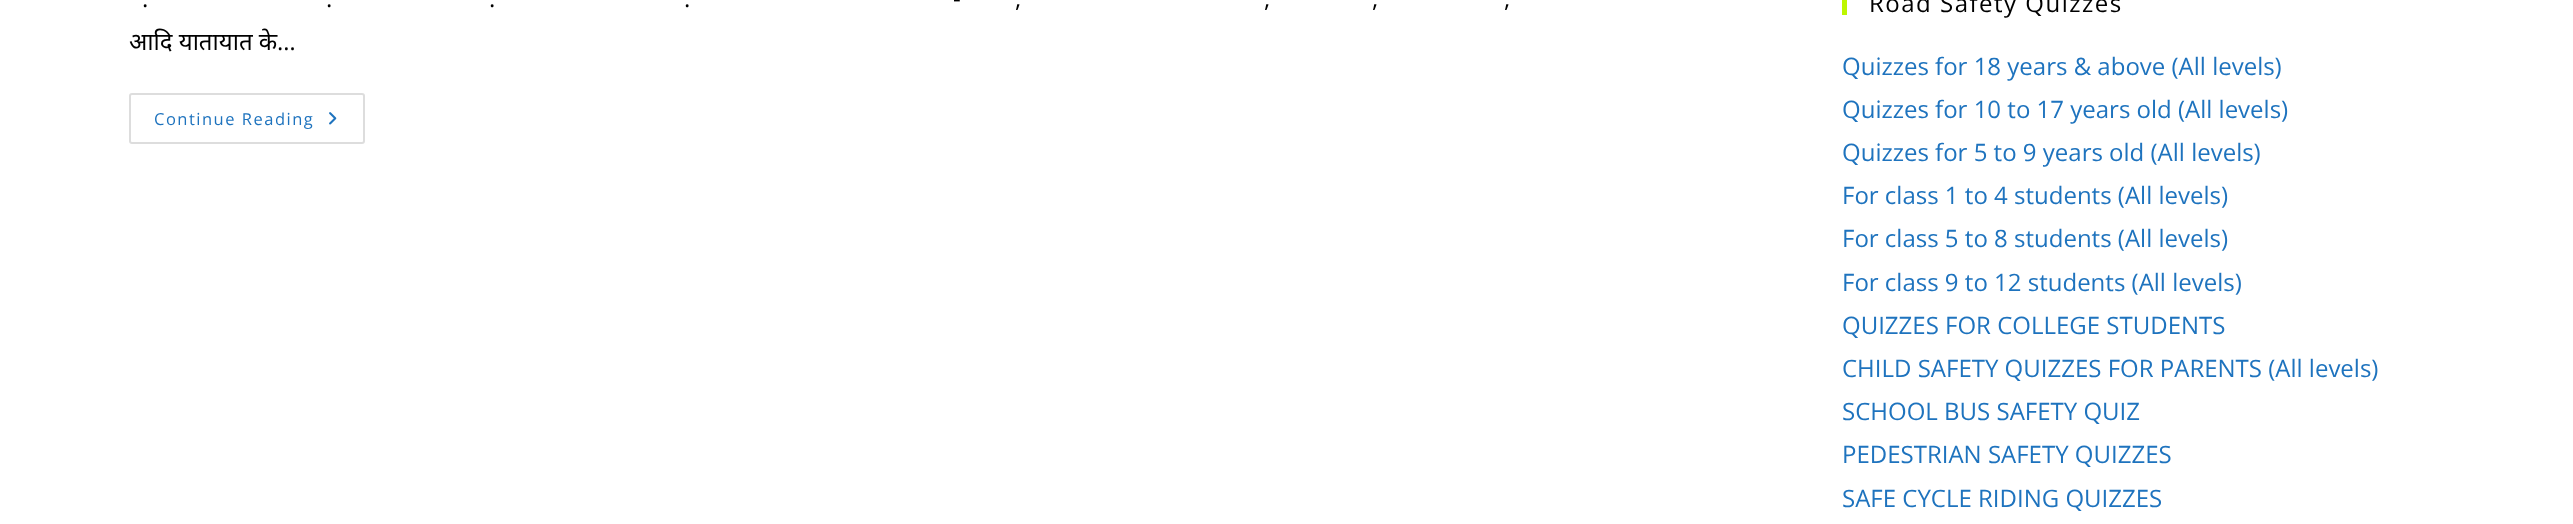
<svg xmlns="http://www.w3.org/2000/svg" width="2573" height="524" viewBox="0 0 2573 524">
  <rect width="100%" height="100%" fill="#ffffff"/>
  <text x="953" y="7" font-family="Open Sans" font-size="24" fill="#000000">-</text>
  <text x="142" y="7" font-family="Open Sans" font-size="24" fill="#000000">.</text>
  <text x="326" y="7" font-family="Open Sans" font-size="24" fill="#000000">.</text>
  <text x="489" y="7" font-family="Open Sans" font-size="24" fill="#000000">.</text>
  <text x="684" y="7" font-family="Open Sans" font-size="24" fill="#000000">.</text>
  <text x="1015" y="7" font-family="Open Sans" font-size="24" fill="#000000">,</text>
  <text x="1264" y="7" font-family="Open Sans" font-size="24" fill="#000000">,</text>
  <text x="1372" y="7" font-family="Open Sans" font-size="24" fill="#000000">,</text>
  <text x="1504" y="7" font-family="Open Sans" font-size="24" fill="#000000">,</text>
  <text x="129" y="50" font-family="Noto Sans" font-size="24" fill="#000000">आदि यातायात के</text>
  <text x="277" y="50" font-family="Open Sans" font-size="24" fill="#000000">…</text>
  <rect x="130" y="94" width="234" height="49" rx="2" fill="none" stroke="#dddddd" stroke-width="2"/>
  <text x="154" y="125" font-family="Open Sans" font-size="16.5" letter-spacing="1.5" fill="#1e73be">Continue Reading</text>
  <image x="329" y="112" width="8" height="13" href="img1.png"/>
  <rect x="1842" y="0" width="5" height="15" fill="#bdf700"/>
  <text x="1869" y="12" font-family="Open Sans" font-size="24" letter-spacing="1.5" fill="#000000">Road Safety Quizzes</text>
  <text x="1842" y="75" font-family="Open Sans" font-size="24" fill="#1e73be">Quizzes for 18 years &amp; above (All levels)</text>
  <text x="1842" y="118" font-family="Open Sans" font-size="24" fill="#1e73be">Quizzes for 10 to 17 years old (All levels)</text>
  <text x="1842" y="161" font-family="Open Sans" font-size="24" fill="#1e73be">Quizzes for 5 to 9 years old (All levels)</text>
  <text x="1842" y="204" font-family="Open Sans" font-size="24" fill="#1e73be">For class 1 to 4 students (All levels)</text>
  <text x="1842" y="247" font-family="Open Sans" font-size="24" fill="#1e73be">For class 5 to 8 students (All levels)</text>
  <text x="1842" y="291" font-family="Open Sans" font-size="24" fill="#1e73be">For class 9 to 12 students (All levels)</text>
  <text x="1842" y="334" font-family="Open Sans" font-size="24" fill="#1e73be">QUIZZES FOR COLLEGE STUDENTS</text>
  <text x="1842" y="377" font-family="Open Sans" font-size="24" fill="#1e73be">CHILD SAFETY QUIZZES FOR PARENTS (All levels)</text>
  <text x="1842" y="420" font-family="Open Sans" font-size="24" fill="#1e73be">SCHOOL BUS SAFETY QUIZ</text>
  <text x="1842" y="463" font-family="Open Sans" font-size="24" fill="#1e73be">PEDESTRIAN SAFETY QUIZZES</text>
  <text x="1842" y="507" font-family="Open Sans" font-size="24" fill="#1e73be">SAFE CYCLE RIDING QUIZZES</text>
</svg>
